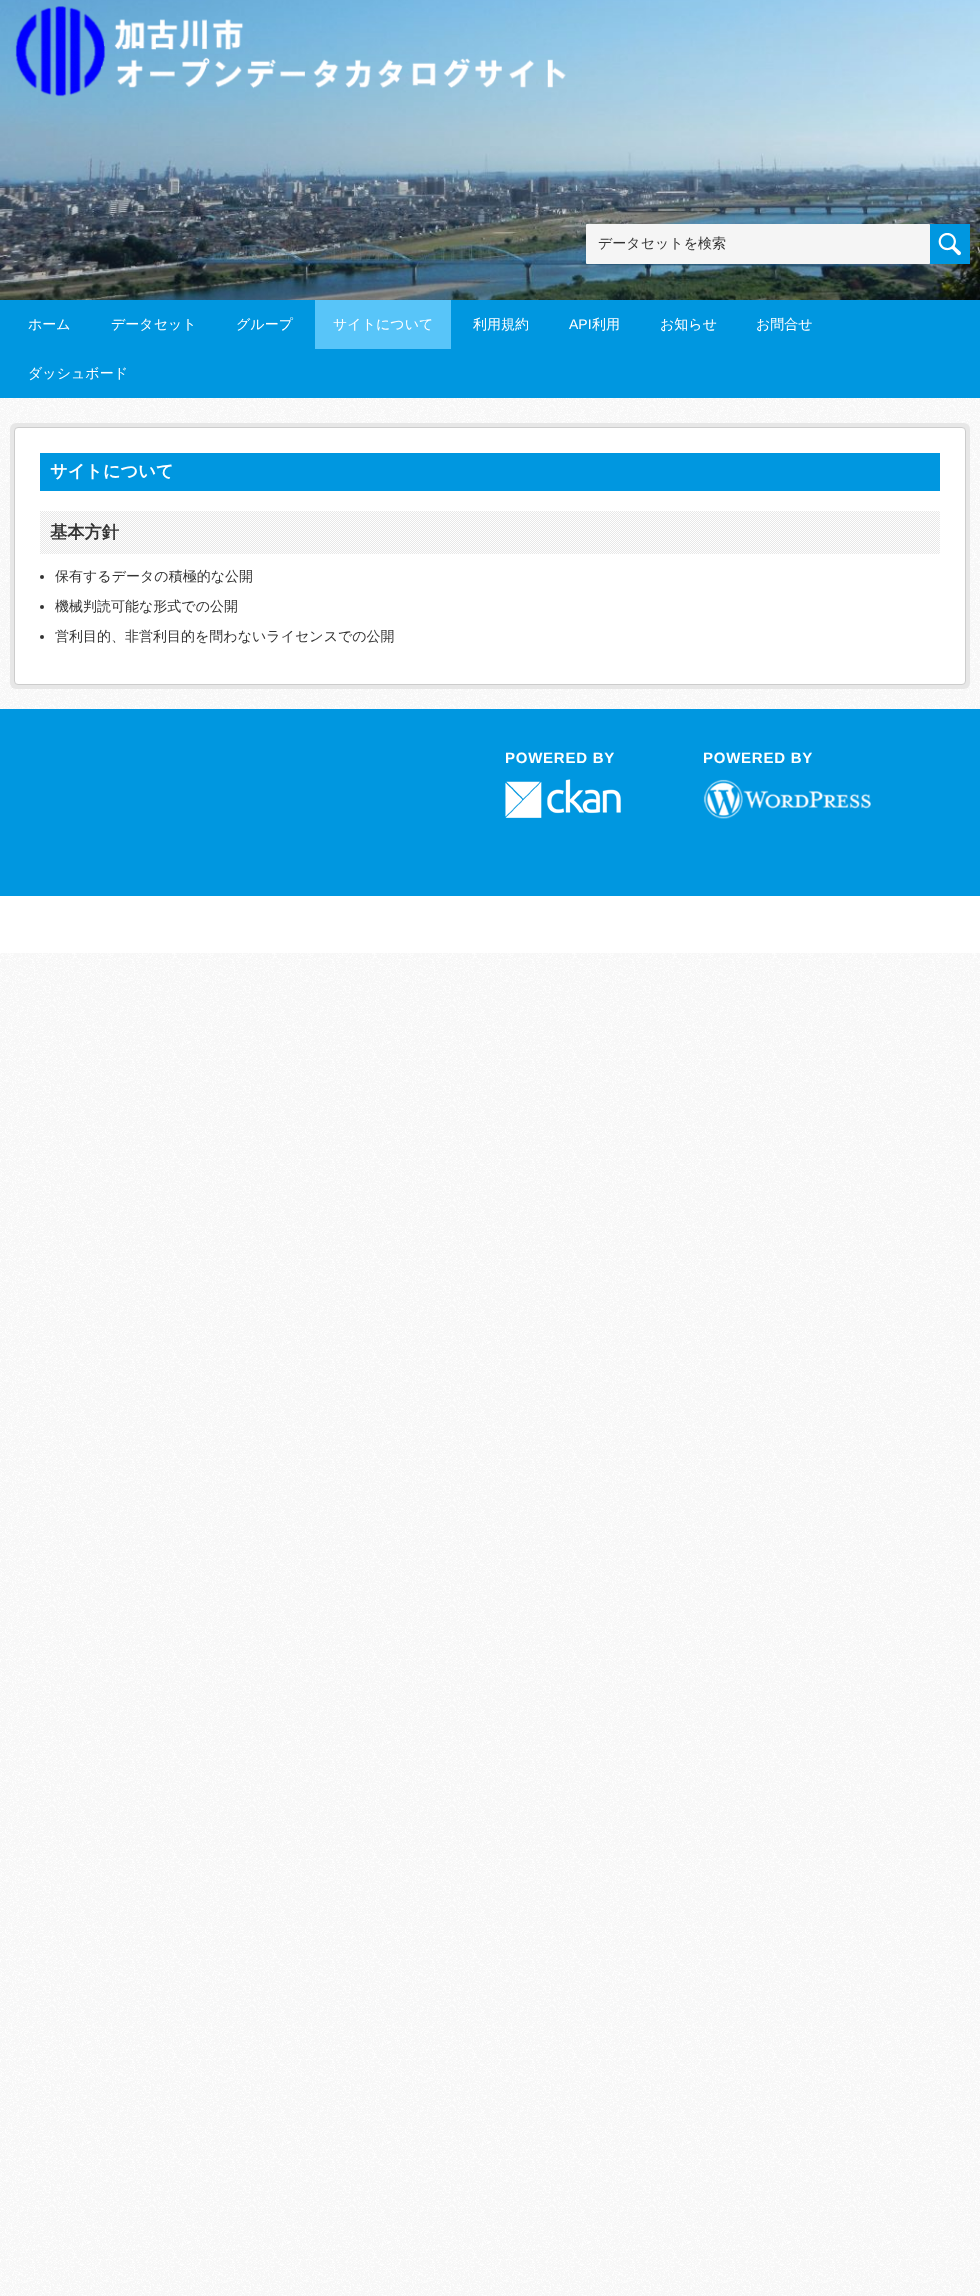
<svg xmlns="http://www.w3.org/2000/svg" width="980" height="2296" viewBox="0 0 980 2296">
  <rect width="100%" height="100%" fill="#ffffff"/>
  <image x="0" y="398" width="980" height="1898" href="img1.png"/>
  <image x="0" y="0" width="980" height="300" href="img2.png"/>
  <image x="15" y="6" width="551" height="91" href="img3.png"/>
  <rect x="586" y="224" width="344" height="40" rx="1" fill="#f5f5f5"/>
  <text x="598" y="248" font-family="WenQuanYi Zen Hei" font-size="14" font-weight="500" fill="#333333">データセットを検索</text>
  <rect x="930" y="224" width="40" height="40" fill="#0097e0"/>
  <image x="938" y="233" width="23" height="23" href="img4.png"/>
  <rect x="0" y="300" width="980" height="98" fill="#0097e0"/>
  <text x="28" y="329" font-family="WenQuanYi Zen Hei" font-size="14" font-weight="500" fill="#ffffff">ホーム</text>
  <text x="111" y="329" font-family="WenQuanYi Zen Hei" font-size="14" font-weight="500" fill="#ffffff">データセット</text>
  <text x="236" y="329" font-family="WenQuanYi Zen Hei" font-size="14" font-weight="500" fill="#ffffff">グループ</text>
  <rect x="315" y="300" width="136" height="49" fill="#58c5f9"/>
  <text x="333" y="329" font-family="WenQuanYi Zen Hei" font-size="14" font-weight="500" fill="#ffffff">サイトについて</text>
  <text x="473" y="329" font-family="WenQuanYi Zen Hei" font-size="14" font-weight="500" fill="#ffffff">利用規約</text>
  <text x="569" y="329" font-family="Liberation Sans" font-size="14" fill="#ffffff">API</text>
  <text x="592" y="329" font-family="WenQuanYi Zen Hei" font-size="14" font-weight="500" fill="#ffffff">利用</text>
  <text x="660" y="329" font-family="WenQuanYi Zen Hei" font-size="14" font-weight="500" fill="#ffffff">お知らせ</text>
  <text x="756" y="329" font-family="WenQuanYi Zen Hei" font-size="14" font-weight="500" fill="#ffffff">お問合せ</text>
  <text x="28" y="378" font-family="WenQuanYi Zen Hei" font-size="14" font-weight="500" fill="#ffffff">ダッシュボード</text>
  <rect x="10" y="423" width="960" height="266" rx="6" fill="#e7e7e7"/>
  <rect x="14.5" y="427.5" width="951" height="257" rx="3.5" fill="#ffffff" stroke="#cccccc"/>
  <rect x="40" y="453" width="900" height="38" fill="#0097e0"/>
  <text x="50" y="477" font-family="WenQuanYi Zen Hei" font-size="17.25" font-weight="bold" fill="#ffffff">サイトについて</text>
  <image x="40" y="511" width="900" height="43" href="img5.png"/>
  <text x="50" y="538" font-family="WenQuanYi Zen Hei" font-size="17.25" font-weight="bold" fill="#333333">基本方針</text>
  <circle cx="42" cy="577" r="2" fill="#333333"/>
  <text x="55" y="581" font-family="WenQuanYi Zen Hei" font-size="14" font-weight="500" fill="#333333">保有するデータの積極的な公開</text>
  <circle cx="42" cy="607" r="2" fill="#333333"/>
  <text x="55" y="611" font-family="WenQuanYi Zen Hei" font-size="14" font-weight="500" fill="#333333">機械判読可能な形式での公開</text>
  <circle cx="42" cy="637" r="2" fill="#333333"/>
  <text x="55" y="641" font-family="WenQuanYi Zen Hei" font-size="14" font-weight="500" fill="#333333">営利目的、非営利目的を問わないライセンスでの公開</text>
  <rect x="0" y="709" width="980" height="187" fill="#0097e0"/>
  <text x="505" y="763" font-family="Liberation Sans" font-size="15" font-weight="bold" letter-spacing="0.75" fill="#ffffff">POWERED BY</text>
  <image x="505" y="779" width="116" height="39" href="img6.png"/>
  <text x="703" y="763" font-family="Liberation Sans" font-size="15" font-weight="bold" letter-spacing="0.75" fill="#ffffff">POWERED BY</text>
  <image x="703" y="779" width="168" height="40" href="img7.png"/>
  <rect x="0" y="896" width="980" height="57" fill="#ffffff"/>
</svg>
